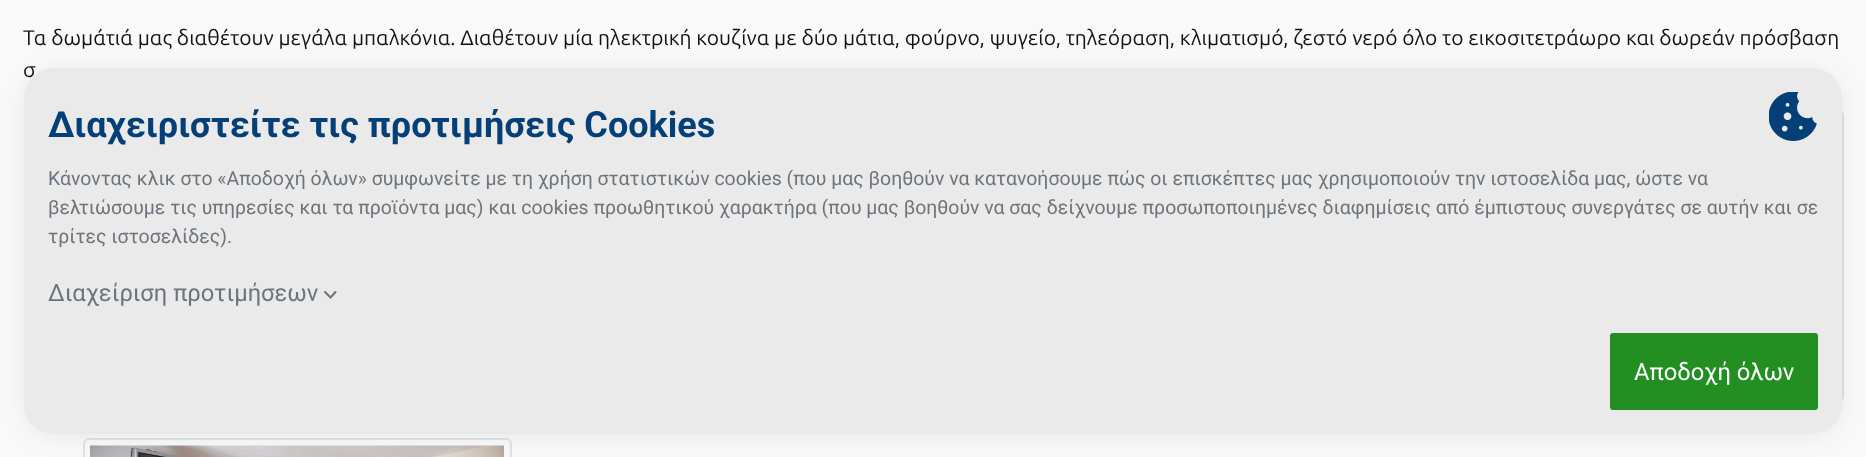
<svg xmlns="http://www.w3.org/2000/svg" width="1866" height="457" viewBox="0 0 1866 457">
  <defs>
    <filter id="blur1" x="-50%" y="-200%" width="200%" height="500%"><feGaussianBlur stdDeviation="14"/></filter>
  </defs>
  <rect width="100%" height="100%" fill="#f9f9f9"/>
  <text x="23" y="45" font-family="Ubuntu" font-size="21" fill="#121212">Τα δωμάτιά μας διαθέτουν μεγάλα μπαλκόνια. Διαθέτουν μία ηλεκτρική κουζίνα με δύο μάτια, φούρνο, ψυγείο, τηλεόραση, κλιματισμό, ζεστό νερό όλο το εικοσιτετράωρο και δωρεάν πρόσβαση</text>
  <text x="23" y="77" font-family="Ubuntu" font-size="21" fill="#121212">σ</text>
  <rect x="1416" y="111" width="427" height="290" rx="5" fill="none" stroke="#dee2e6" stroke-width="2"/>
  <rect x="84" y="439" width="427" height="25" rx="5" fill="none" stroke="#dee2e6" stroke-width="2"/>
  <image x="90" y="445" width="414" height="12" href="img1.png"/>
  <rect x="30" y="77" width="1806" height="354" rx="24" fill="#01013f" fill-opacity="0.1" filter="url(#blur1)"/>
  <rect x="24" y="68" width="1818" height="366" rx="30" fill="#eaeaea"/>
  <text x="48" y="137" font-family="Roboto" font-size="36" font-weight="bold" fill="#044077">Διαχειριστείτε τις προτιμήσεις Cookies</text>
  <image x="1769" y="92" width="48" height="49" href="img2.png"/>
  <text x="48" y="185" font-family="Roboto" font-size="19.45" fill="#6c757d">Κάνοντας κλικ στο «Αποδοχή όλων» συμφωνείτε με τη χρήση στατιστικών cookies (που μας βοηθούν να κατανοήσουμε πώς οι επισκέπτες μας χρησιμοποιούν την ιστοσελίδα μας, ώστε να</text>
  <text x="48" y="214" font-family="Roboto" font-size="19.45" fill="#6c757d">βελτιώσουμε τις υπηρεσίες και τα προϊόντα μας) και cookies προωθητικού χαρακτήρα (που μας βοηθούν να σας δείχνουμε προσωποποιημένες διαφημίσεις από έμπιστους συνεργάτες σε αυτήν και σε</text>
  <text x="48" y="243" font-family="Roboto" font-size="19.45" fill="#6c757d">τρίτες ιστοσελίδες).</text>
  <text x="48" y="301" font-family="Roboto" font-size="23.75" fill="#6c757d">Διαχείριση προτιμήσεων</text>
  <path d="M325 292L330.5 297.5L335.5 292" fill="none" stroke="#6c757d" stroke-width="2.1" stroke-linecap="round"/>
  <rect x="1610" y="333" width="208" height="77" rx="3" fill="#238f23"/>
  <text x="1634" y="380" font-family="Roboto" font-size="23.75" fill="#ffffff">Αποδοχή όλων</text>
</svg>
